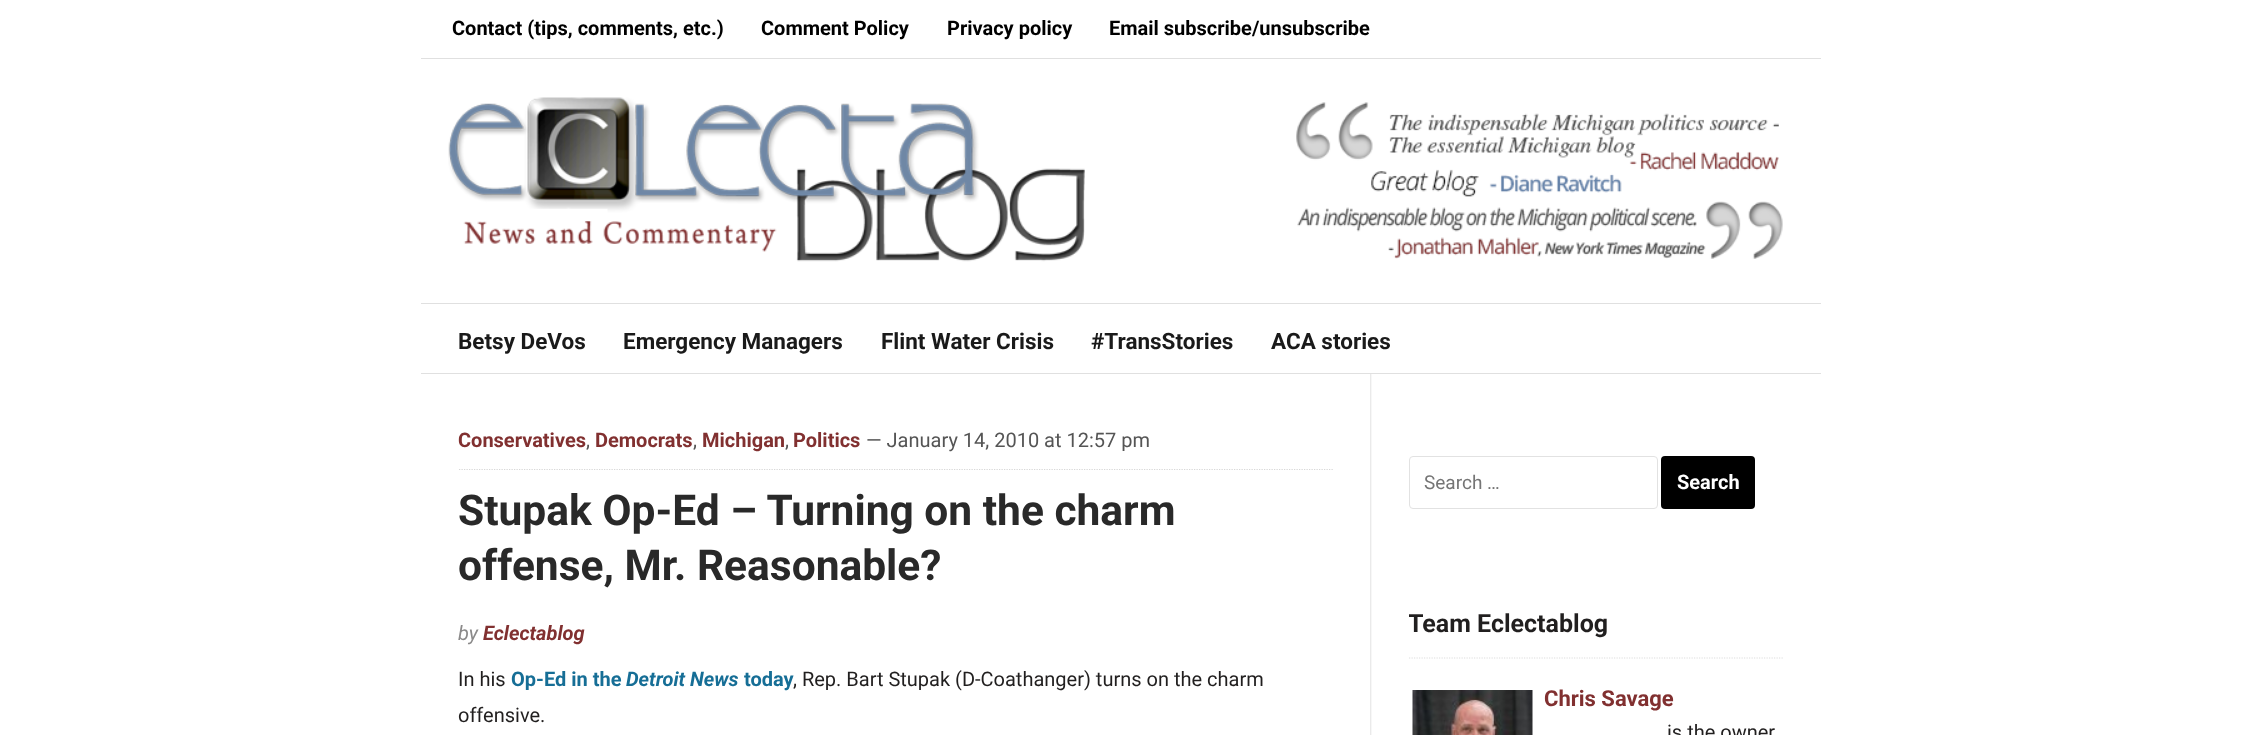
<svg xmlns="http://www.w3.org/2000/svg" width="2241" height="735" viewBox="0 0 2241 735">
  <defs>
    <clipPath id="clip1"><rect x="1409" y="411" width="375" height="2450"/></clipPath>
  </defs>
  <rect width="100%" height="100%" fill="#ffffff"/>
  <image x="1370" y="374" width="2" height="361" href="img1.png"/>
  <rect x="421" y="58" width="1400" height="1" fill="#e0e0e0"/>
  <text x="452" y="35" font-family="Roboto" font-size="20" font-weight="bold" fill="#000000">Contact (tips, comments, etc.)</text>
  <text x="761" y="35" font-family="Roboto" font-size="20" font-weight="bold" fill="#000000">Comment Policy</text>
  <text x="947" y="35" font-family="Roboto" font-size="20" font-weight="bold" fill="#000000">Privacy policy</text>
  <text x="1109" y="35" font-family="Roboto" font-size="20" font-weight="bold" fill="#000000">Email subscribe/unsubscribe</text>
  <image x="448" y="97" width="637" height="165" href="img2.png"/>
  <image x="1296" y="102" width="487" height="157" href="img3.png"/>
  <rect x="421" y="303" width="1400" height="1" fill="#e0e0e0"/>
  <rect x="421" y="373" width="1400" height="1" fill="#e0e0e0"/>
  <text x="458" y="349" font-family="Roboto" font-size="22.5" font-weight="bold" fill="#1a1a1a">Betsy DeVos</text>
  <text x="623" y="349" font-family="Roboto" font-size="22.5" font-weight="bold" fill="#1a1a1a">Emergency Managers</text>
  <text x="881" y="349" font-family="Roboto" font-size="22.5" font-weight="bold" fill="#1a1a1a">Flint Water Crisis</text>
  <text x="1091" y="349" font-family="Roboto" font-size="22.5" font-weight="bold" fill="#1a1a1a">#TransStories</text>
  <text x="1271" y="349" font-family="Roboto" font-size="22.5" font-weight="bold" fill="#1a1a1a">ACA stories</text>
  <path d="M459 469.5H1334" fill="none" stroke="#d7d7d7" stroke-width="1.2" stroke-dasharray="1.25 1.25"/>
  <text x="458" y="447" font-family="Roboto" font-size="20" font-weight="bold" fill="#813030">Conservatives</text>
  <text x="586" y="447" font-family="Roboto" font-size="20" fill="#555555">,</text>
  <text x="595" y="447" font-family="Roboto" font-size="20" font-weight="bold" fill="#813030">Democrats</text>
  <text x="693" y="447" font-family="Roboto" font-size="20" fill="#555555">,</text>
  <text x="702" y="447" font-family="Roboto" font-size="20" font-weight="bold" fill="#813030">Michigan</text>
  <text x="785" y="447" font-family="Roboto" font-size="20" fill="#555555">,</text>
  <text x="793" y="447" font-family="Roboto" font-size="20" font-weight="bold" fill="#813030">Politics</text>
  <text x="866" y="447" font-family="Roboto" font-size="20" fill="#555555">— January 14, 2010 at 12:57 pm</text>
  <text x="458" y="525" font-family="Roboto" font-size="42.5" font-weight="bold" fill="#292929">Stupak Op-Ed – Turning on the charm</text>
  <text x="458" y="580" font-family="Roboto" font-size="42.5" font-weight="bold" fill="#292929">offense, Mr. Reasonable?</text>
  <text x="458" y="640" font-family="Roboto" font-size="20" font-style="italic" fill="#8b8a8a">by</text>
  <text x="483" y="640" font-family="Roboto" font-size="20" font-weight="bold" font-style="italic" fill="#813030">Eclectablog</text>
  <text x="458" y="686" font-family="Roboto" font-size="20" fill="#211f1f">In his</text>
  <text x="511" y="686" font-family="Roboto" font-size="20" font-weight="bold" fill="#166e96">Op-Ed in the</text>
  <text x="626" y="686" font-family="Roboto" font-size="20" font-weight="bold" font-style="italic" fill="#166e96">Detroit News</text>
  <text x="744" y="686" font-family="Roboto" font-size="20" font-weight="bold" fill="#166e96">today</text>
  <text x="793" y="686" font-family="Roboto" font-size="20" fill="#211f1f">, Rep. Bart Stupak (D-Coathanger) turns on the charm</text>
  <text x="458" y="722" font-family="Roboto" font-size="20" fill="#211f1f">offensive.</text>
  <rect x="1409.5" y="456.5" width="248" height="52" rx="3.5" fill="none" stroke="#e2e2e2"/>
  <text x="1424" y="489" font-family="Roboto" font-size="19" fill="#757575">Search …</text>
  <rect x="1661" y="456" width="94" height="53" rx="4" fill="#000000"/>
  <text x="1677" y="489" font-family="Roboto" font-size="20" font-weight="bold" fill="#ffffff">Search</text>
  <path d="M1409 658H1784" fill="none" stroke="#dddddd" stroke-width="1.2" stroke-dasharray="1.25 1.25"/>
  <g clip-path="url(#clip1)">
    <text x="1408" y="632" font-family="Roboto" font-size="25" font-weight="bold" fill="#211f1f">Team Eclectablog</text>
  </g>
  <image x="1412" y="690" width="121" height="45" href="img4.png"/>
  <text x="1544" y="706" font-family="Roboto" font-size="22" font-weight="bold" fill="#813030">Chris Savage</text>
  <text x="1667" y="739" font-family="Roboto" font-size="20" fill="#211f1f">is the owner</text>
</svg>
